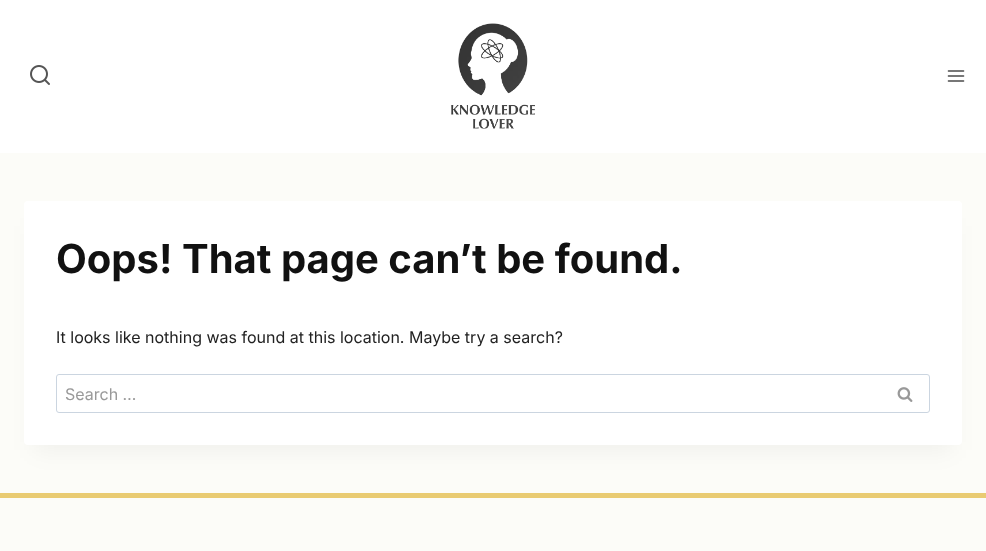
<svg xmlns="http://www.w3.org/2000/svg" width="986" height="551" viewBox="0 0 986 551">
  <defs>
    <filter id="blur1" x="-50%" y="-200%" width="200%" height="500%"><feGaussianBlur stdDeviation="12.5"/></filter>
  </defs>
  <rect width="100%" height="100%" fill="#fcfcf8"/>
  <rect x="0" y="0" width="986" height="153" fill="#ffffff"/>
  <image x="30" y="65" width="20" height="20" href="img1.png"/>
  <image x="451" y="23" width="84" height="106" href="img2.png"/>
  <image x="947" y="70" width="18" height="12" href="img3.png"/>
  <rect x="34" y="226" width="918" height="224" fill="#000000" fill-opacity="0.05" filter="url(#blur1)"/>
  <rect x="24" y="201" width="938" height="244" rx="4" fill="#ffffff"/>
  <text x="56" y="273" font-family="Inter" font-size="40" font-weight="bold" fill="#111111">Oops! That page can’t be found.</text>
  <text x="56" y="343" font-family="Inter" font-size="16" fill="#222222">It looks like nothing was found at this location. Maybe try a search?</text>
  <rect x="56.5" y="374.5" width="873" height="38" rx="2.5" fill="none" stroke="#cbd5e0"/>
  <text x="65" y="400" font-family="Inter" font-size="16" fill="#999999">Search …</text>
  <image x="897" y="387" width="16" height="15" href="img4.png"/>
  <rect x="0" y="493" width="986" height="5" fill="#e9cb72"/>
</svg>
